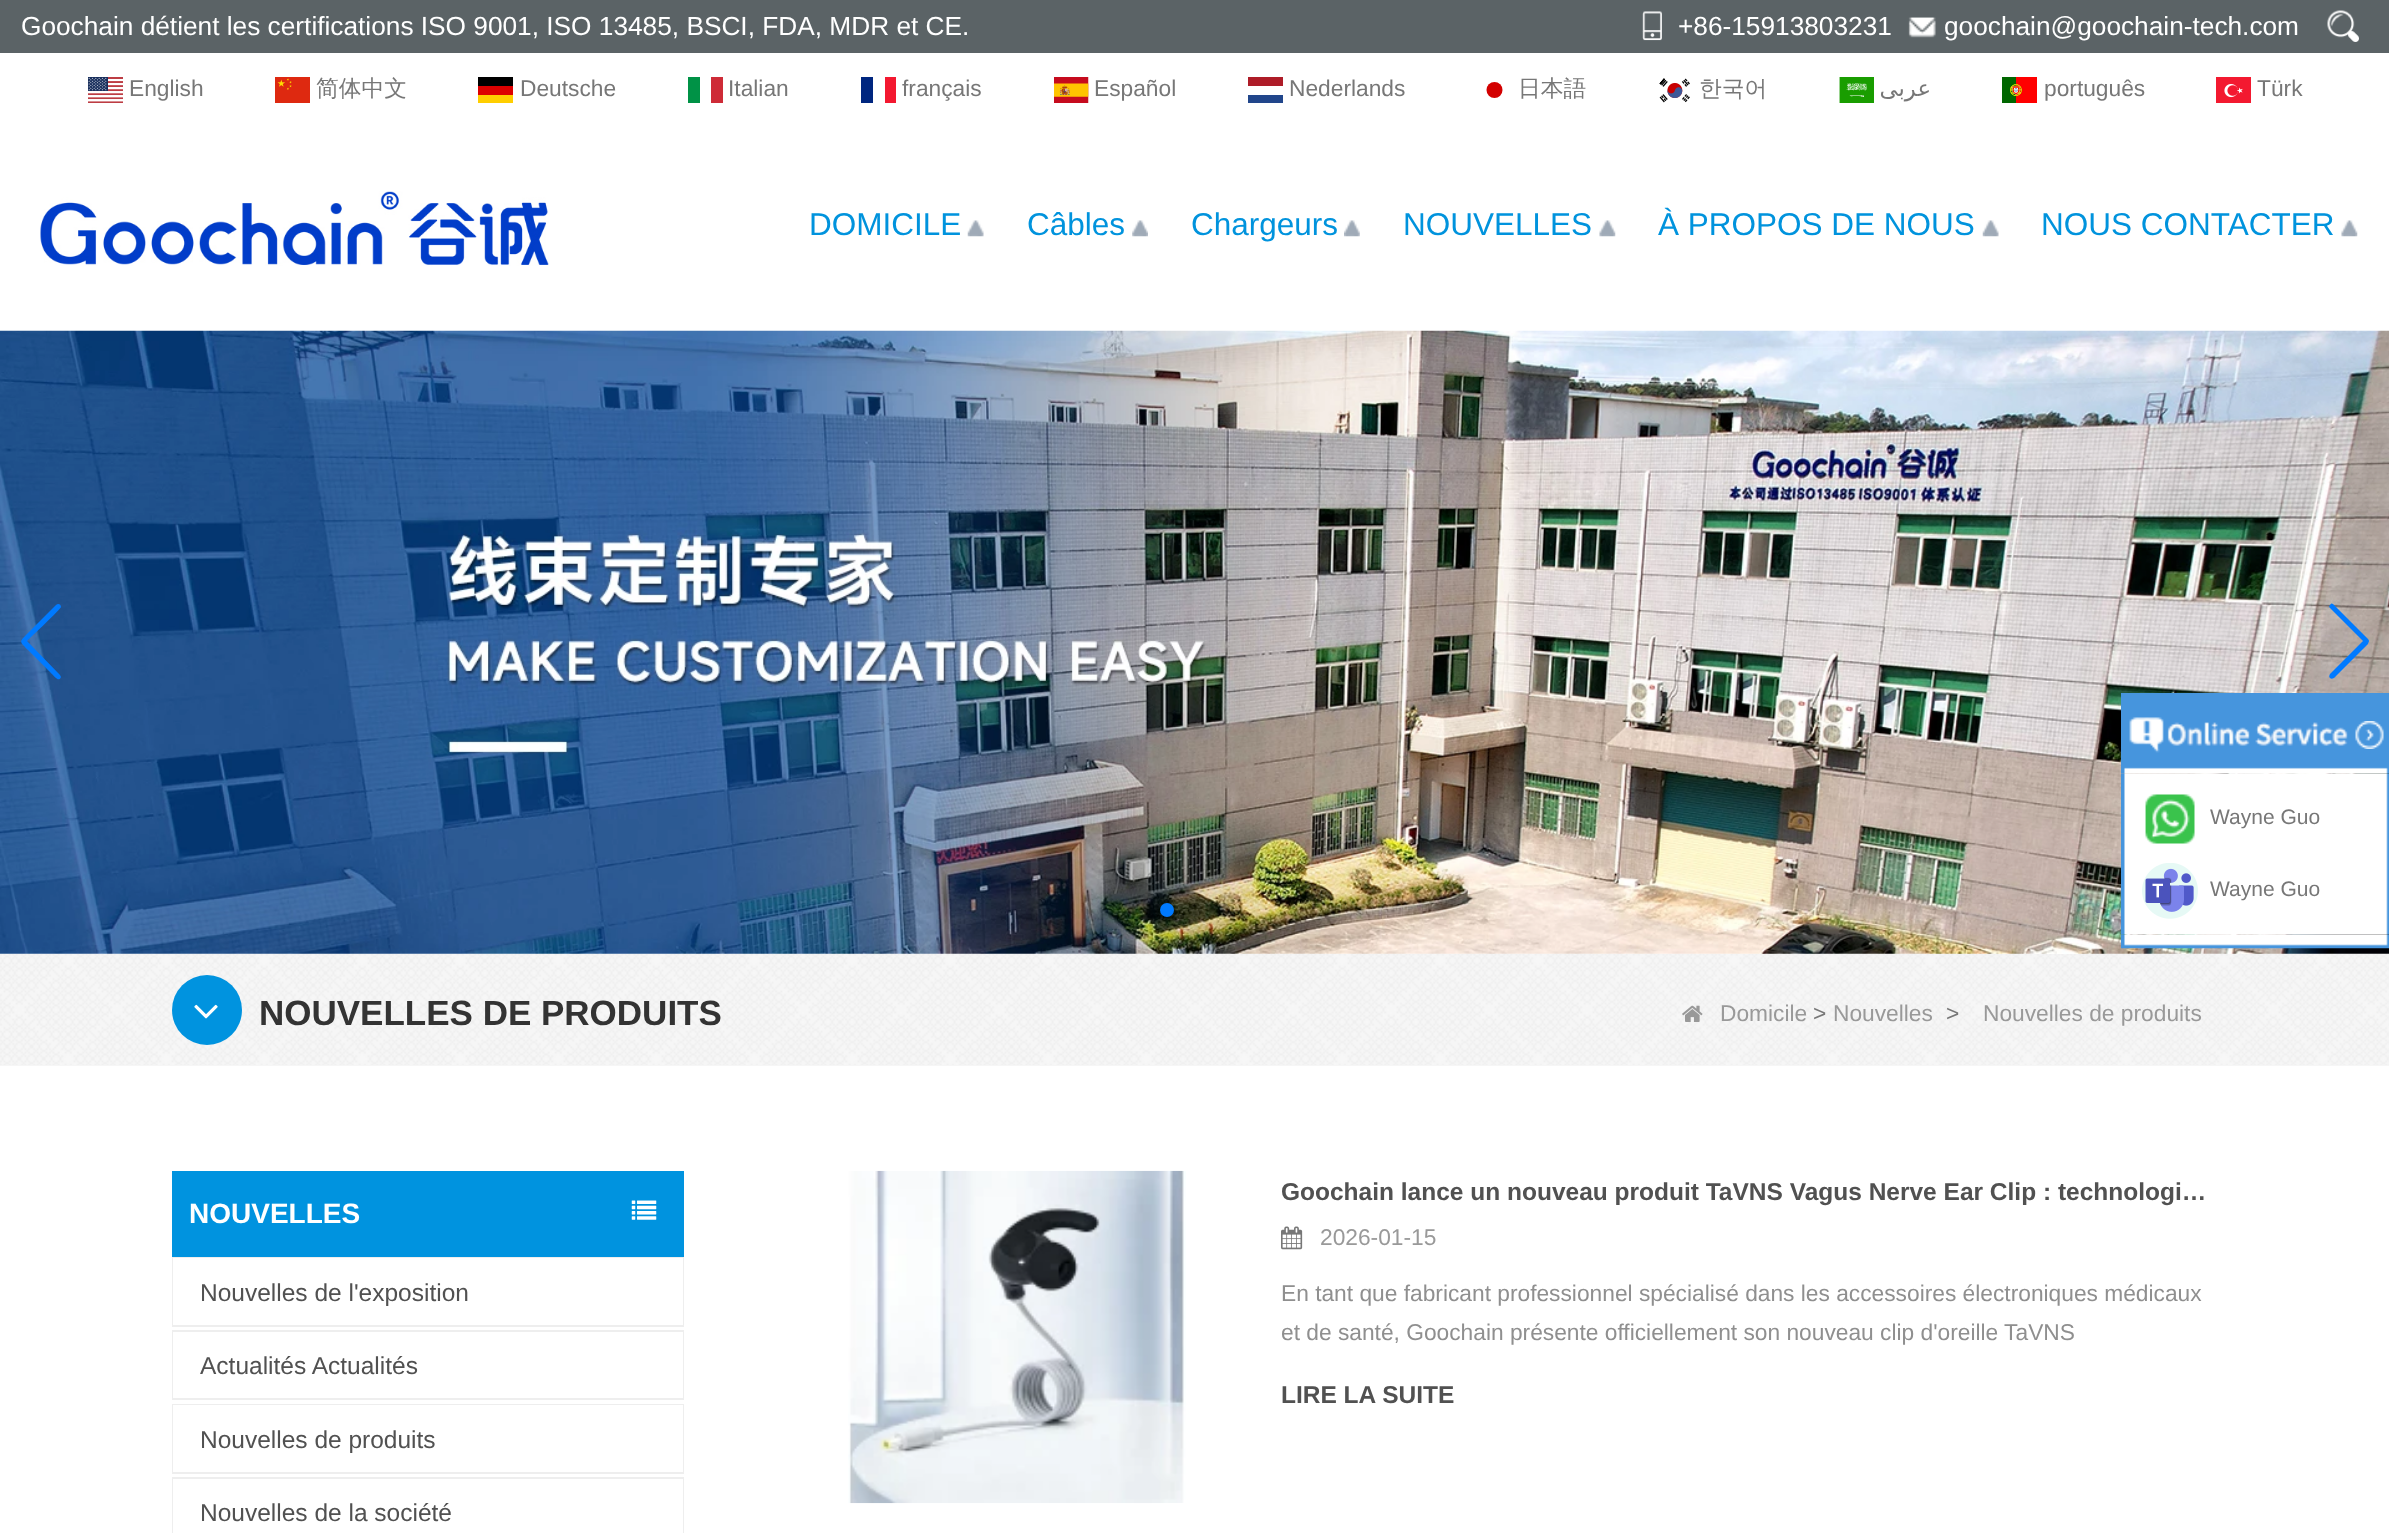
<svg xmlns="http://www.w3.org/2000/svg" width="2389" height="1533" viewBox="0 0 2389 1533">
  <rect width="100%" height="100%" fill="#ffffff"/>
  <rect x="0" y="0" width="2389" height="53" fill="#5b6366"/>
  <text x="21" y="35" font-family="Liberation Sans" font-size="26.25" fill="#ffffff">Goochain détient les certifications ISO 9001, ISO 13485, BSCI, FDA, MDR et CE.</text>
  <image x="1642" y="11" width="20" height="30" href="img1.png"/>
  <text x="1678" y="35" font-family="Liberation Sans" font-size="26.25" fill="#ffffff">+86-15913803231</text>
  <image x="1908" y="17" width="28" height="21" href="img2.png"/>
  <text x="1944" y="35" font-family="Liberation Sans" font-size="26.25" fill="#ffffff">goochain@goochain-tech.com</text>
  <image x="2327" y="10" width="32" height="32" href="img3.png"/>
  <image x="88" y="77" width="35" height="26" href="img4.png"/>
  <text x="129" y="96" font-family="Liberation Sans" font-size="22.75" fill="#777777">English</text>
  <image x="275" y="77" width="35" height="26" href="img5.png"/>
  <text x="316" y="96" font-family="WenQuanYi Zen Hei" font-size="22.75" font-weight="500" fill="#777777">简体中文</text>
  <rect x="478" y="95" width="35" height="8" fill="#ffce00"/>
  <rect x="478" y="77" width="35" height="9" fill="#000000"/>
  <rect x="478" y="86" width="35" height="9" fill="#dd0000"/>
  <text x="520" y="96" font-family="Liberation Sans" font-size="22.75" fill="#777777">Deutsche</text>
  <rect x="688" y="77" width="12" height="26" fill="#009246"/>
  <rect x="711" y="77" width="12" height="26" fill="#ce2b37"/>
  <text x="728" y="96" font-family="Liberation Sans" font-size="22.75" fill="#777777">Italian</text>
  <rect x="861" y="77" width="12" height="26" fill="#00267f"/>
  <rect x="885" y="77" width="11" height="26" fill="#f31830"/>
  <text x="902" y="96" font-family="Liberation Sans" font-size="22.75" fill="#777777">français</text>
  <image x="1054" y="77" width="35" height="26" href="img6.png"/>
  <text x="1094" y="96" font-family="Liberation Sans" font-size="22.75" fill="#777777">Español</text>
  <rect x="1248" y="95" width="35" height="8" fill="#21468b"/>
  <rect x="1248" y="77" width="35" height="9" fill="#ae1c28"/>
  <text x="1289" y="96" font-family="Liberation Sans" font-size="22.75" fill="#777777">Nederlands</text>
  <circle cx="1494.5" cy="90" r="8" fill="#d30000"/>
  <text x="1518" y="96" font-family="WenQuanYi Zen Hei" font-size="22.75" font-weight="500" fill="#777777">日本語</text>
  <image x="1659" y="78" width="31" height="25" href="img7.png"/>
  <text x="1699" y="96" font-family="WenQuanYi Zen Hei" font-size="22.75" font-weight="500" fill="#777777">한국어</text>
  <image x="1839" y="77" width="35" height="26" href="img8.png"/>
  <text x="1931" y="96" font-family="DejaVu Sans" font-size="22.75" direction="rtl" fill="#777777">عربى</text>
  <image x="2002" y="77" width="35" height="26" href="img9.png"/>
  <text x="2044" y="96" font-family="Liberation Sans" font-size="22.75" fill="#777777">português</text>
  <image x="2216" y="77" width="35" height="26" href="img10.png"/>
  <text x="2257" y="96" font-family="Liberation Sans" font-size="22.75" fill="#777777">Türk</text>
  <image x="40" y="191" width="509" height="75" href="img11.png"/>
  <text x="809" y="235" font-family="Liberation Sans" font-size="31.5" fill="#0093dd">DOMICILE</text>
  <image x="967" y="220" width="17" height="17" href="img12.png"/>
  <text x="1027" y="235" font-family="Liberation Sans" font-size="31.5" fill="#0093dd">Câbles</text>
  <image x="1132" y="220" width="16" height="17" href="img13.png"/>
  <text x="1191" y="235" font-family="Liberation Sans" font-size="31.5" fill="#0093dd">Chargeurs</text>
  <image x="1344" y="220" width="16" height="17" href="img14.png"/>
  <text x="1403" y="235" font-family="Liberation Sans" font-size="31.5" fill="#0093dd">NOUVELLES</text>
  <image x="1599" y="220" width="17" height="17" href="img15.png"/>
  <text x="1658" y="235" font-family="Liberation Sans" font-size="31.5" fill="#0093dd">À PROPOS DE NOUS</text>
  <image x="1982" y="220" width="17" height="17" href="img16.png"/>
  <text x="2041" y="235" font-family="Liberation Sans" font-size="31.5" fill="#0093dd">NOUS CONTACTER</text>
  <image x="2341" y="220" width="17" height="17" href="img17.png"/>
  <image x="0" y="330" width="2389" height="624" href="img18.png"/>
  <path d="M56 605C58 603 61 604 61 607C61 609 31 637 27 641L60 675L61 677C59 683 54 676 50 672L28 650C19 641 19 642 28 633Z" fill="#007aff"/>
  <path d="M2330 678C2329 677 2329 676 2330 674L2363 641L2330 608C2329 607 2329 606 2330 605C2331 603 2332 603 2334 605L2368 639C2368 639 2369 640 2369 641C2369 642 2368 643 2368 644L2334 678C2332 679 2331 679 2330 678Z" fill="#007aff"/>
  <circle cx="1167" cy="910" r="7" fill="#007aff"/>
  <circle cx="1195" cy="910" r="7" fill="#000000" fill-opacity="0.2"/>
  <circle cx="1223" cy="910" r="7" fill="#000000" fill-opacity="0.2"/>
  <image x="2121" y="693" width="268" height="81" href="img19.png"/>
  <image x="2355" y="721" width="29" height="28" href="img20.png"/>
  <image x="2121" y="773" width="268" height="162" href="img21.png"/>
  <image x="2145" y="794" width="50" height="50" href="img22.png"/>
  <text x="2210" y="824" font-family="Liberation Sans" font-size="21" fill="#777777">Wayne Guo</text>
  <image x="2142" y="863" width="56" height="56" href="img23.png"/>
  <text x="2210" y="896" font-family="Liberation Sans" font-size="21" fill="#777777">Wayne Guo</text>
  <image x="2121" y="934" width="268" height="15" href="img24.png"/>
  <rect x="0" y="954" width="2389" height="112" fill="#f6f6f6"/>
  <image x="0" y="954" width="2389" height="111" href="img25.png"/>
  <circle cx="207" cy="1010" r="35" fill="#0093df"/>
  <image x="194" y="1004" width="24" height="15" href="img26.png"/>
  <text x="259" y="1025" font-family="Liberation Sans" font-size="35" font-weight="bold" fill="#333333">NOUVELLES DE PRODUITS</text>
  <image x="1682" y="1005" width="21" height="17" href="img27.png"/>
  <text x="1720" y="1021" font-family="Liberation Sans" font-size="22.75" fill="#999999">Domicile</text>
  <text x="1813" y="1021" font-family="Liberation Sans" font-size="22.75" fill="#777777">&gt;</text>
  <text x="1833" y="1021" font-family="Liberation Sans" font-size="22.75" fill="#999999">Nouvelles</text>
  <text x="1946" y="1021" font-family="Liberation Sans" font-size="22.75" fill="#777777">&gt;</text>
  <text x="1983" y="1021" font-family="Liberation Sans" font-size="22.75" fill="#999999">Nouvelles de produits</text>
  <rect x="172" y="1171" width="512" height="86" fill="#0093df"/>
  <text x="189" y="1223" font-family="Liberation Sans" font-size="28" font-weight="bold" fill="#ffffff">NOUVELLES</text>
  <image x="631" y="1200" width="26" height="20" href="img28.png"/>
  <rect x="173" y="1258" width="510" height="68" fill="none" stroke="#eeeeee" stroke-width="2"/>
  <rect x="173" y="1258" width="510" height="67" fill="#ffffff"/>
  <text x="200" y="1301" font-family="Liberation Sans" font-size="24.5" fill="#515151">Nouvelles de l'exposition</text>
  <rect x="173" y="1331" width="510" height="68" fill="none" stroke="#eeeeee" stroke-width="2"/>
  <rect x="173" y="1332" width="510" height="66" fill="#ffffff"/>
  <text x="200" y="1374" font-family="Liberation Sans" font-size="24.5" fill="#515151">Actualités Actualités</text>
  <rect x="173" y="1405" width="510" height="68" fill="none" stroke="#eeeeee" stroke-width="2"/>
  <rect x="173" y="1405" width="510" height="67" fill="#ffffff"/>
  <text x="200" y="1448" font-family="Liberation Sans" font-size="24.5" fill="#515151">Nouvelles de produits</text>
  <rect x="173" y="1478" width="510" height="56" fill="none" stroke="#eeeeee" stroke-width="2"/>
  <rect x="173" y="1479" width="510" height="54" fill="#ffffff"/>
  <text x="200" y="1521" font-family="Liberation Sans" font-size="24.5" fill="#515151">Nouvelles de la société</text>
  <image x="848" y="1170" width="338" height="334" href="img29.png"/>
  <text x="1281" y="1200" font-family="Liberation Sans" font-size="24.5" font-weight="bold" fill="#515151">Goochain lance un nouveau produit TaVNS Vagus Nerve Ear Clip : technologi…</text>
  <image x="1281" y="1226" width="22" height="24" href="img30.png"/>
  <text x="1320" y="1245" font-family="Liberation Sans" font-size="22.75" fill="#999999">2026-01-15</text>
  <text x="1281" y="1301" font-family="Liberation Sans" font-size="22.75" fill="#8f8f8f">En tant que fabricant professionnel spécialisé dans les accessoires électroniques médicaux</text>
  <text x="1281" y="1340" font-family="Liberation Sans" font-size="22.75" fill="#8f8f8f">et de santé, Goochain présente officiellement son nouveau clip d'oreille TaVNS</text>
  <text x="1281" y="1403" font-family="Liberation Sans" font-size="24.5" font-weight="bold" fill="#515151">LIRE LA SUITE</text>
</svg>
